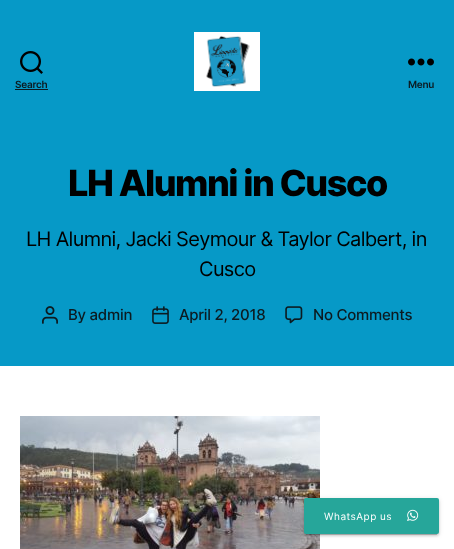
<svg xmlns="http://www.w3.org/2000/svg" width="454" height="549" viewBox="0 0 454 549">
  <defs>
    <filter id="blur1" x="-50%" y="-200%" width="200%" height="500%"><feGaussianBlur stdDeviation="0.5"/></filter>
    <filter id="blur2" x="-50%" y="-200%" width="200%" height="500%"><feGaussianBlur stdDeviation="2.5"/></filter>
    <filter id="blur3" x="-50%" y="-200%" width="200%" height="500%"><feGaussianBlur stdDeviation="1"/></filter>
  </defs>
  <rect width="100%" height="100%" fill="#ffffff"/>
  <rect x="0" y="0" width="454" height="366" fill="#0699c7"/>
  <image x="20" y="51" width="23" height="23" href="img1.png"/>
  <text x="15" y="88" font-family="Inter" font-size="10" font-weight="600" letter-spacing="-0.25" fill="#0c1b21">Search</text>
  <rect x="15" y="89" width="33" height="1" fill="#0c1b21"/>
  <image x="194" y="32" width="66" height="59" href="img2.png"/>
  <image x="408" y="58" width="26" height="8" href="img3.png"/>
  <text x="408" y="88" font-family="Inter" font-size="10" font-weight="600" letter-spacing="-0.25" fill="#0c1b21">Menu</text>
  <text x="68" y="196" font-family="Inter" font-size="36" font-weight="800" letter-spacing="-1.5" fill="#000000">LH Alumni in Cusco</text>
  <text x="26" y="246" font-family="Inter" font-size="20" letter-spacing="-0.65" fill="#000000">LH Alumni, Jacki Seymour &amp; Taylor Calbert, in</text>
  <text x="199" y="276" font-family="Inter" font-size="20" letter-spacing="-0.65" fill="#000000">Cusco</text>
  <image x="42" y="306" width="16" height="18" href="img4.png"/>
  <text x="68" y="320" font-family="Inter" font-size="15" font-weight="500" letter-spacing="-0.25" fill="#0c1b21">By admin</text>
  <image x="152" y="306" width="17" height="18" href="img5.png"/>
  <text x="179" y="320" font-family="Inter" font-size="15" font-weight="500" letter-spacing="-0.25" fill="#0c1b21">April 2, 2018</text>
  <image x="285" y="306" width="18" height="18" href="img6.png"/>
  <text x="313" y="320" font-family="Inter" font-size="15" font-weight="500" letter-spacing="-0.25" fill="#0c1b21">No Comments</text>
  <image x="20" y="416" width="300" height="133" href="img7.png"/>
  <rect x="306" y="503" width="131" height="32" fill="#000000" fill-opacity="0.2" filter="url(#blur1)"/>
  <rect x="304" y="499" width="135" height="36" rx="2" fill="#000000" fill-opacity="0.12" filter="url(#blur2)"/>
  <rect x="304" y="500" width="135" height="36" rx="2" fill="#000000" fill-opacity="0.14" filter="url(#blur3)"/>
  <rect x="304" y="498" width="135" height="36" rx="2" fill="#26a69a"/>
  <text x="324" y="520" font-family="Inter" font-size="10" letter-spacing="0.5" fill="#ffffff">WhatsApp us</text>
  <image x="407" y="509" width="12" height="12" href="img8.png"/>
</svg>
